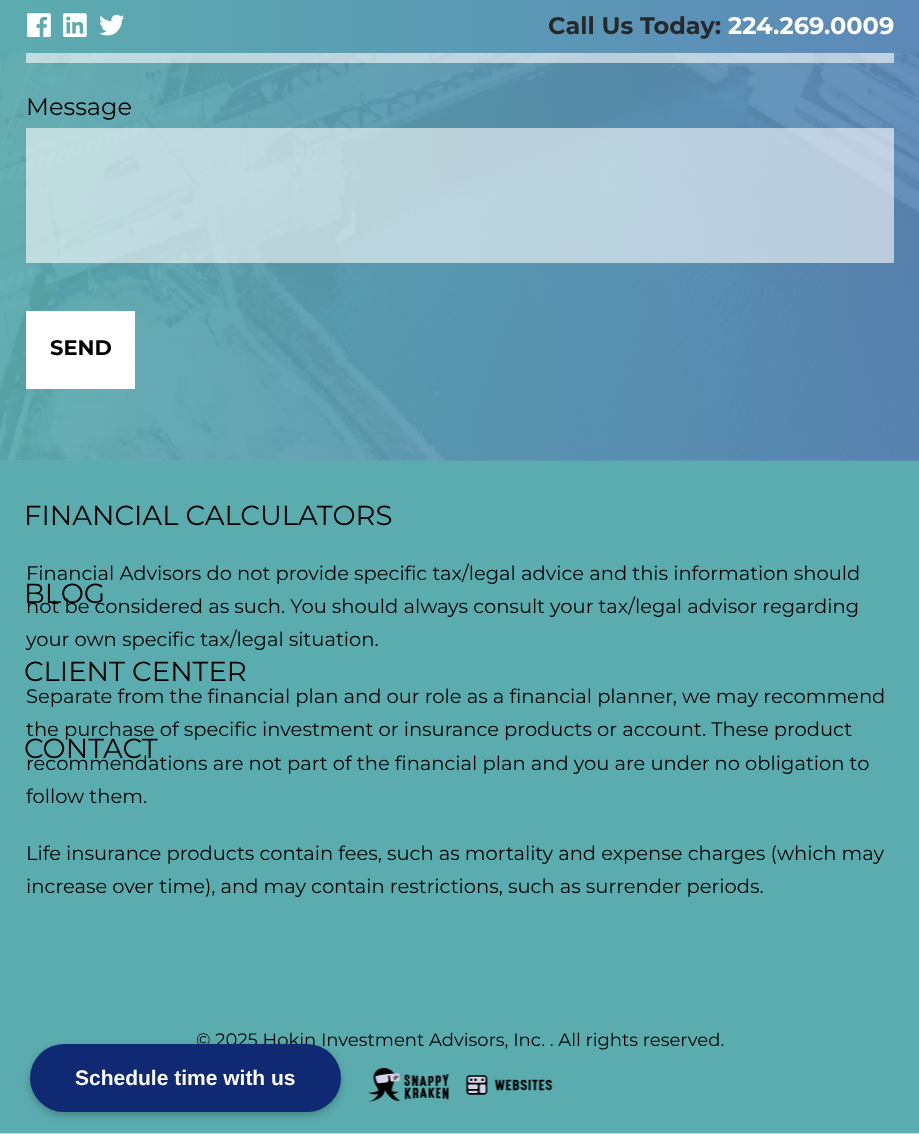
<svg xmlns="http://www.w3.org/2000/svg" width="919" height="1134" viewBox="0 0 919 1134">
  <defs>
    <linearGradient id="g1" gradientUnits="userSpaceOnUse" x1="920" y1="26" x2="0" y2="26"><stop offset="0" stop-color="#5c89b8"/><stop offset="1" stop-color="#5bacaf"/></linearGradient>
    <linearGradient id="g2" gradientUnits="userSpaceOnUse" x1="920" y1="-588" x2="0" y2="-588"><stop offset="0" stop-color="#5c89b8" stop-opacity="0.92"/><stop offset="1" stop-color="#5bacaf" stop-opacity="0.92"/></linearGradient>
    <filter id="blur1" x="-50%" y="-200%" width="200%" height="500%"><feGaussianBlur stdDeviation="4"/></filter>
  </defs>
  <rect width="100%" height="100%" fill="#ffffff"/>
  <rect x="0" y="1133" width="919" height="1" fill="#d3d4e6"/>
  <rect x="0" y="0" width="919" height="53" fill="url(#g1)"/>
  <image x="27" y="13" width="24" height="24" href="img1.png"/>
  <image x="63" y="13" width="24" height="24" href="img2.png"/>
  <image x="99" y="14" width="26" height="22" href="img3.png"/>
  <text x="548" y="34" font-family="'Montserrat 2'" font-size="24" font-weight="100" fill="#27282a">Call Us Today:</text>
  <text x="728" y="34" font-family="'Montserrat 2'" font-size="24" font-weight="100" fill="#ffffff">224.269.0009</text>
  <image x="0" y="53" width="919" height="408" href="img4.png"/>
  <rect x="0" y="53" width="919" height="408" fill="url(#g2)"/>
  <rect x="26" y="53" width="868" height="10" fill="#fefefe" fill-opacity="0.6"/>
  <text x="26" y="115" font-family="Montserrat" font-size="24" font-weight="100" fill="#000000">Message</text>
  <rect x="26" y="128" width="868" height="135" fill="#fefefe" fill-opacity="0.6"/>
  <rect x="26" y="311" width="109" height="78" fill="#ffffff"/>
  <text x="50" y="355" font-family="'Montserrat 2'" font-size="21" font-weight="100" fill="#000000">SEND</text>
  <rect x="0" y="461" width="919" height="672" fill="#5bacaf"/>
  <text x="26" y="580" font-family="Montserrat" font-size="19.5" font-weight="100" fill="#000000">Financial Advisors do not provide specific tax/legal advice and this information should</text>
  <text x="26" y="613" font-family="Montserrat" font-size="19.5" font-weight="100" fill="#000000">not be considered as such. You should always consult your tax/legal advisor regarding</text>
  <text x="26" y="646" font-family="Montserrat" font-size="19.5" font-weight="100" fill="#000000">your own specific tax/legal situation.</text>
  <text x="26" y="703" font-family="Montserrat" font-size="19.5" font-weight="100" fill="#000000">Separate from the financial plan and our role as a financial planner, we may recommend</text>
  <text x="26" y="736" font-family="Montserrat" font-size="19.5" font-weight="100" fill="#000000">the purchase of specific investment or insurance products or account. These product</text>
  <text x="26" y="770" font-family="Montserrat" font-size="19.5" font-weight="100" fill="#000000">recommendations are not part of the financial plan and you are under no obligation to</text>
  <text x="26" y="803" font-family="Montserrat" font-size="19.5" font-weight="100" fill="#000000">follow them.</text>
  <text x="26" y="860" font-family="Montserrat" font-size="19.5" font-weight="100" fill="#000000">Life insurance products contain fees, such as mortality and expense charges (which may</text>
  <text x="26" y="893" font-family="Montserrat" font-size="19.5" font-weight="100" fill="#000000">increase over time), and may contain restrictions, such as surrender periods.</text>
  <text x="24" y="525" font-family="Montserrat" font-size="27.6" font-weight="100" fill="#000000">FINANCIAL CALCULATORS</text>
  <text x="24" y="603" font-family="Montserrat" font-size="27.6" font-weight="100" fill="#000000">BLOG</text>
  <text x="24" y="681" font-family="Montserrat" font-size="27.6" font-weight="100" fill="#000000">CLIENT CENTER</text>
  <text x="24" y="758" font-family="Montserrat" font-size="27.6" font-weight="100" fill="#000000">CONTACT</text>
  <text x="196" y="1046" font-family="Montserrat" font-size="18" font-weight="100" fill="#000000">© 2025 Hokin Investment Advisors, Inc. . All rights reserved.</text>
  <image x="367" y="1068" width="186" height="34" href="img5.png"/>
  <rect x="30" y="1047" width="311" height="68" rx="34" fill="#000000" fill-opacity="0.25" filter="url(#blur1)"/>
  <rect x="30" y="1044" width="311" height="68" rx="34" fill="#0f2973"/>
  <text x="75" y="1085" font-family="Liberation Sans" font-size="21" font-weight="bold" fill="#ffffff">Schedule time with us</text>
</svg>
